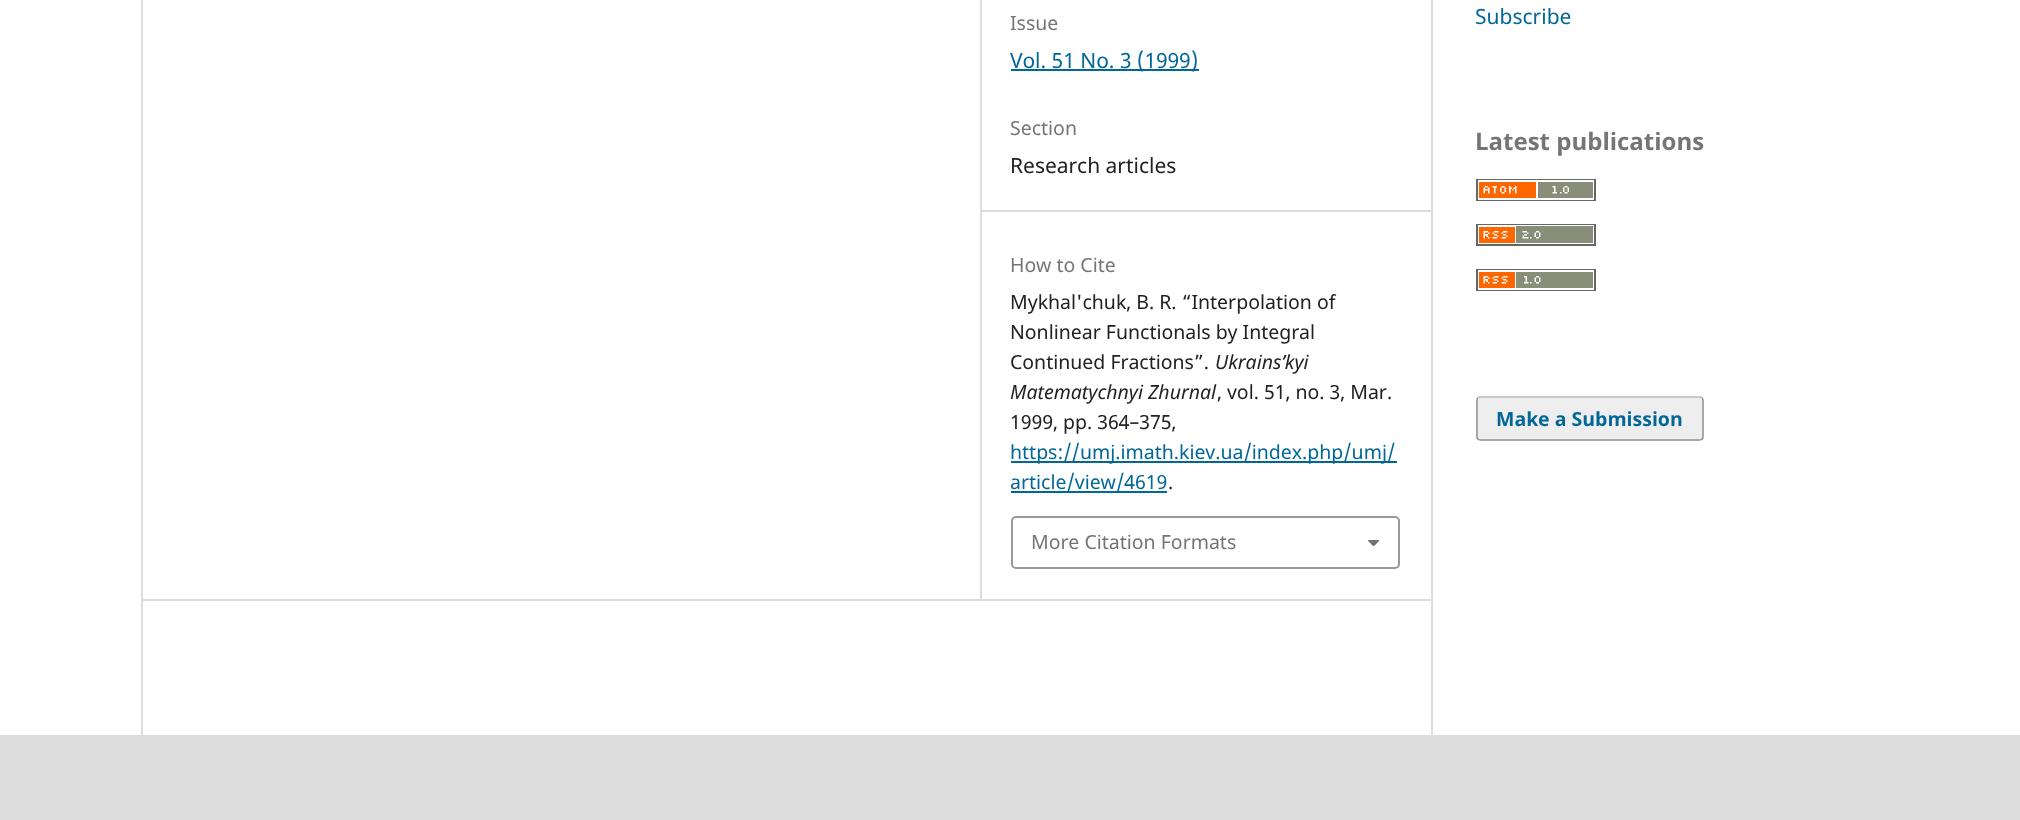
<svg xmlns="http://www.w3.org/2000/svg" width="2020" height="820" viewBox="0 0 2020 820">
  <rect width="100%" height="100%" fill="#ffffff"/>
  <rect x="141" y="599" width="1290" height="2" fill="#dddddd"/>
  <rect x="141" y="0" width="2" height="735" fill="#dddddd"/>
  <rect x="980" y="0" width="2" height="599" fill="#dddddd"/>
  <rect x="981" y="210" width="450" height="2" fill="#dddddd"/>
  <text x="1010" y="30" font-family="Noto Sans" font-size="19.5" fill="#757575">Issue</text>
  <rect x="1011" y="69" width="188" height="2" fill="#006798"/>
  <text x="1010" y="68" font-family="Noto Sans" font-size="21" fill="#006798">Vol. 51 No. 3 (1999)</text>
  <text x="1010" y="135" font-family="Noto Sans" font-size="19.5" fill="#757575">Section</text>
  <text x="1010" y="173" font-family="Noto Sans" font-size="21" fill="#212121">Research articles</text>
  <text x="1010" y="272" font-family="Noto Sans" font-size="19.5" fill="#757575">How to Cite</text>
  <text x="1010" y="309" font-family="Noto Sans" font-size="19.5" fill="#212121">Mykhal'chuk, B. R. “Interpolation of</text>
  <text x="1010" y="339" font-family="Noto Sans" font-size="19.5" fill="#212121">Nonlinear Functionals by Integral</text>
  <text x="1010" y="369" font-family="Noto Sans" font-size="19.5" fill="#212121">Continued Fractions”.</text>
  <text x="1215" y="369" font-family="Noto Sans" font-size="19.5" font-style="italic" fill="#212121">Ukrains’kyi</text>
  <text x="1010" y="399" font-family="Noto Sans" font-size="19.5" font-style="italic" fill="#212121">Matematychnyi Zhurnal</text>
  <text x="1217" y="399" font-family="Noto Sans" font-size="19.5" fill="#212121">, vol. 51, no. 3, Mar.</text>
  <text x="1010" y="429" font-family="Noto Sans" font-size="19.5" fill="#212121">1999, pp. 364–375,</text>
  <rect x="1011" y="461" width="386" height="2" fill="#006798"/>
  <text x="1010" y="459" font-family="Noto Sans" font-size="19.5" fill="#006798">https://umj.imath.kiev.ua/index.php/umj/</text>
  <rect x="1011" y="491" width="156" height="2" fill="#006798"/>
  <text x="1010" y="489" font-family="Noto Sans" font-size="19.5" fill="#006798">article/view/4619</text>
  <text x="1168" y="489" font-family="Noto Sans" font-size="19.5" fill="#212121">.</text>
  <rect x="1012" y="517" width="387" height="51" rx="4" fill="none" stroke="#999999" stroke-width="2"/>
  <text x="1031" y="549" font-family="Noto Sans" font-size="19.5" fill="#757575">More Citation Formats</text>
  <image x="1368" y="540" width="12" height="7" href="img1.png"/>
  <rect x="1431" y="0" width="2" height="735" fill="#dddddd"/>
  <text x="1475" y="24" font-family="Noto Sans" font-size="21" fill="#006798">Subscribe</text>
  <text x="1475" y="150" font-family="Noto Sans" font-size="24" font-weight="bold" fill="#757575">Latest publications</text>
  <image x="1476" y="179" width="120" height="22" href="img2.png"/>
  <image x="1476" y="224" width="120" height="22" href="img3.png"/>
  <image x="1476" y="269" width="120" height="22" href="img4.png"/>
  <rect x="1476" y="396" width="228" height="45" rx="5" fill="#eeeeee"/>
  <path d="M1478 398C1478.5 397 1479.5 397 1480.5 397H1699.5C1700.5 397 1701.5 397 1702 398" fill="none" stroke="#bbbbbb" stroke-width="1.5"/>
  <path d="M1702 398C1703 398.5 1703 399.5 1703 400.5V436.5C1703 437.5 1703 438.5 1702 439C1701.5 440 1700.5 440 1699.5 440H1480.5C1479.5 440 1478.5 440 1478 439C1477 438.5 1477 437.5 1477 436.5V400.5C1477 399.5 1477 398.5 1478 398" fill="none" stroke="#000000" stroke-opacity="0.4" stroke-width="1.5"/>
  <text x="1496" y="426" font-family="Noto Sans" font-size="19.5" font-weight="bold" fill="#006798">Make a Submission</text>
  <rect x="0" y="735" width="2020" height="85" fill="#dddddd"/>
</svg>
